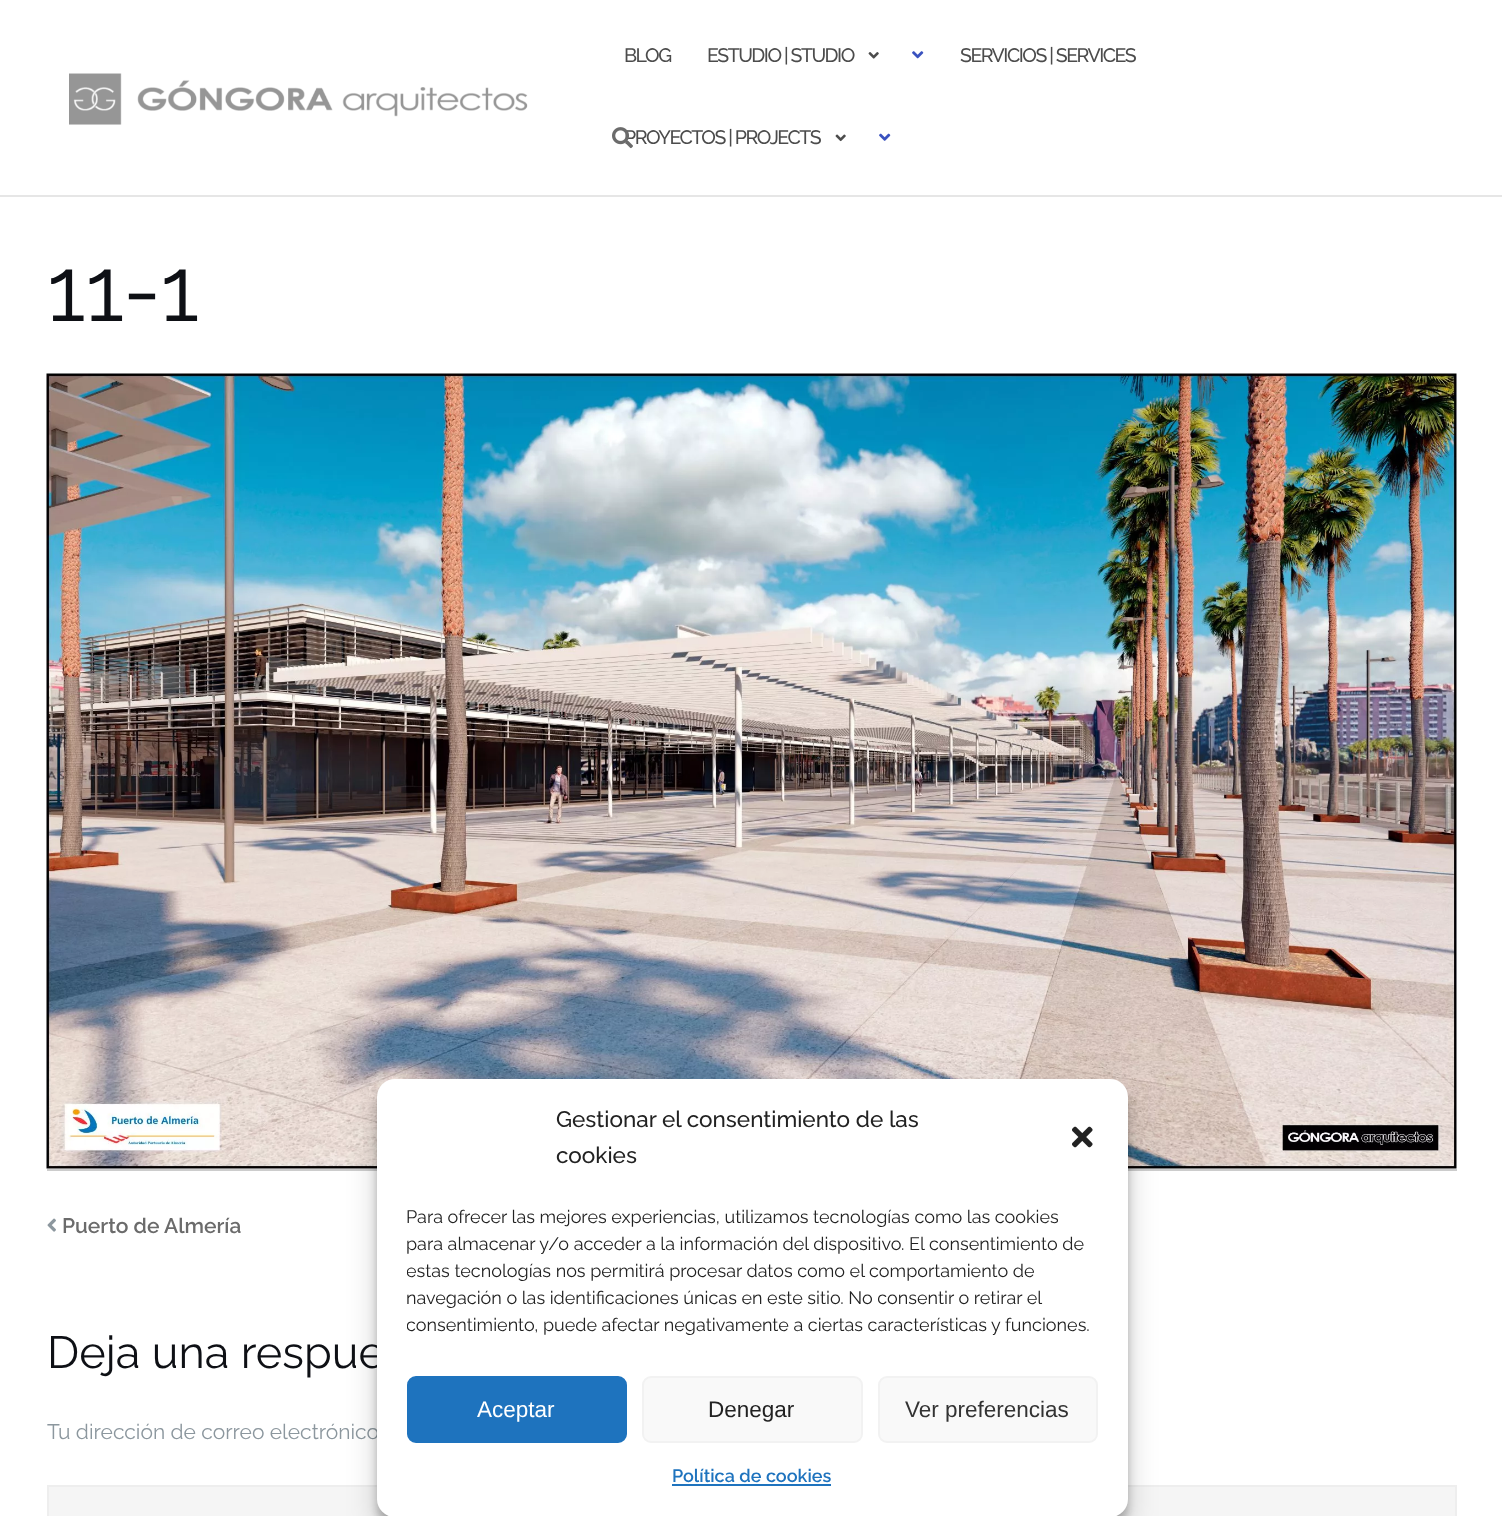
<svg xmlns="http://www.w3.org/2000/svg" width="1502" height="1516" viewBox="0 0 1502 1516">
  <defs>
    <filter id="blur1" x="-50%" y="-200%" width="200%" height="500%"><feGaussianBlur stdDeviation="4.5"/></filter>
    <filter id="blur2" x="-50%" y="-200%" width="200%" height="500%"><feGaussianBlur stdDeviation="15"/></filter>
    <clipPath id="clip1"><rect x="407" y="1203" width="691" height="143"/></clipPath>
  </defs>
  <rect width="100%" height="100%" fill="#ffffff"/>
  <rect x="0" y="195" width="1502" height="2" fill="#e6e6e6"/>
  <image x="69" y="73" width="459" height="52" href="img1.png"/>
  <text x="624" y="144" font-family="Raleway" font-size="19.5" font-weight="500" letter-spacing="-1.5" fill="#4c4c4c">PROYECTOS | PROJECTS</text>
  <image x="612" y="127" width="21" height="22" href="img2.png"/>
  <text x="624" y="62" font-family="Raleway" font-size="19.5" font-weight="500" letter-spacing="-1.5" fill="#4c4c4c">BLOG</text>
  <text x="707" y="62" font-family="Raleway" font-size="19.5" font-weight="500" letter-spacing="-1.5" fill="#4c4c4c">ESTUDIO | STUDIO</text>
  <image x="868" y="52" width="11" height="7" href="img3.png"/>
  <image x="912" y="51" width="12" height="8" href="img4.png"/>
  <text x="960" y="62" font-family="Raleway" font-size="19.5" font-weight="500" letter-spacing="-1.5" fill="#4c4c4c">SERVICIOS | SERVICES</text>
  <image x="835" y="134" width="11" height="8" href="img5.png"/>
  <image x="879" y="133" width="12" height="8" href="img6.png"/>
  <text x="47" y="321" font-family="Raleway" font-size="90" fill="#0e1015">11-1</text>
  <image x="46" y="373" width="1411" height="796" href="img7.png"/>
  <rect x="47" y="1169" width="1410" height="2" fill="#cccccc"/>
  <image x="47" y="1218" width="9" height="14" href="img8.png"/>
  <text x="62" y="1233" font-family="Raleway" font-size="21" font-weight="600" fill="#6b6b6b">Puerto de Almería</text>
  <text x="47" y="1368" font-family="Raleway" font-size="45" fill="#0e1015">Deja una respue</text>
  <text x="47" y="1439" font-family="Raleway" font-size="21" fill="#8c979e">Tu dirección de correo electrónico</text>
  <rect x="48" y="1486" width="1408" height="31" fill="#f5f5f5" stroke="#eeeeee" stroke-width="2"/>
  <rect x="377" y="1088" width="751" height="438" rx="18" fill="#000000" fill-opacity="0.23" filter="url(#blur1)"/>
  <rect x="377" y="1094" width="751" height="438" rx="18" fill="#000000" fill-opacity="0.19" filter="url(#blur2)"/>
  <rect x="377" y="1079" width="751" height="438" rx="18" fill="#ffffff"/>
  <text x="556" y="1127" font-family="Raleway" font-size="22.5" font-weight="500" fill="#222222">Gestionar el consentimiento de las</text>
  <text x="556" y="1163" font-family="Raleway" font-size="22.5" font-weight="500" fill="#222222">cookies</text>
  <image x="1072" y="1126" width="21" height="22" href="img9.png"/>
  <text x="406" y="1223" font-family="Raleway" font-size="18" fill="#222222">Para ofrecer las mejores experiencias, utilizamos tecnologías como las cookies</text>
  <text x="406" y="1250" font-family="Raleway" font-size="18" fill="#222222">para almacenar y/o acceder a la información del dispositivo. El consentimiento de</text>
  <g clip-path="url(#clip1)">
    <text x="406" y="1277" font-family="Raleway" font-size="18" fill="#222222">estas tecnologías nos permitirá procesar datos como el comportamiento de</text>
  </g>
  <text x="406" y="1304" font-family="Raleway" font-size="18" fill="#222222">navegación o las identificaciones únicas en este sitio. No consentir o retirar el</text>
  <g clip-path="url(#clip1)">
    <text x="406" y="1331" font-family="Raleway" font-size="18" fill="#222222">consentimiento, puede afectar negativamente a ciertas características y funciones.</text>
  </g>
  <rect x="408" y="1377" width="218" height="65" rx="8" fill="#1e73be" stroke="#1e73be" stroke-width="2"/>
  <text x="477" y="1417" font-family="Liberation Sans" font-size="22.5" fill="#ffffff">Aceptar</text>
  <rect x="643" y="1377" width="219" height="65" rx="8" fill="#f9f9f9" stroke="#f2f2f2" stroke-width="2"/>
  <text x="708" y="1417" font-family="Liberation Sans" font-size="22.5" fill="#222222">Denegar</text>
  <rect x="879" y="1377" width="218" height="65" rx="8" fill="#f9f9f9" stroke="#f2f2f2" stroke-width="2"/>
  <text x="905" y="1417" font-family="Liberation Sans" font-size="22.5" fill="#333333">Ver preferencias</text>
  <text x="672" y="1482" font-family="Raleway" font-size="18" font-weight="600" fill="#1e73be">Política de cookies</text>
  <rect x="672" y="1484" width="159" height="2" fill="#1e73be"/>
</svg>
